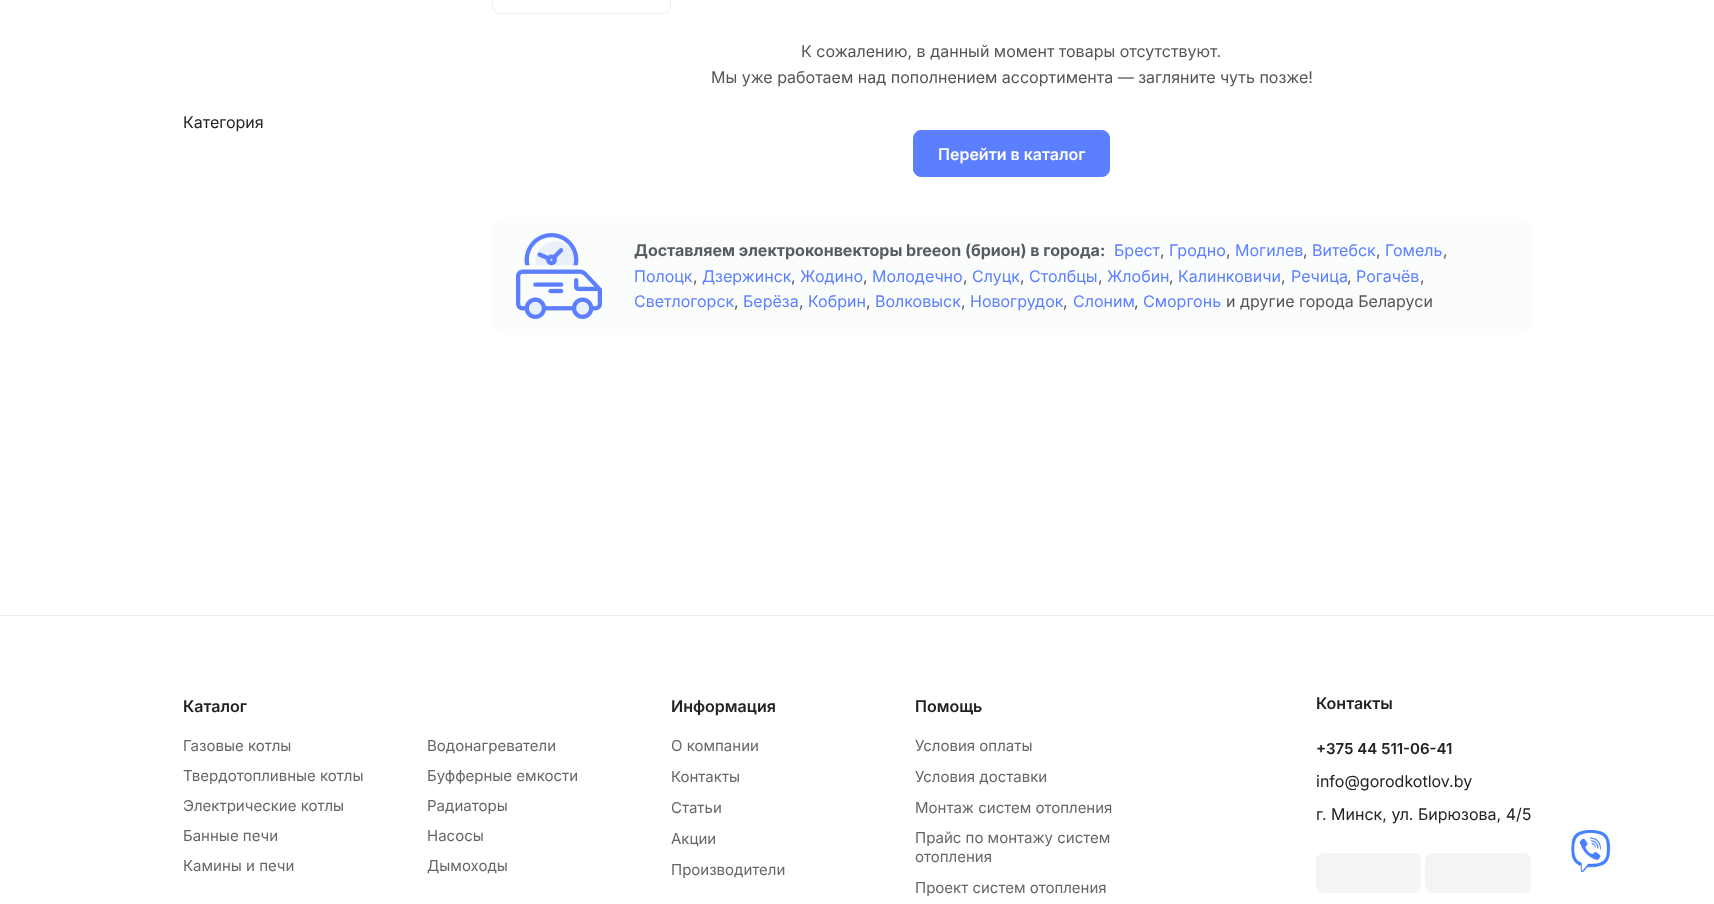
<svg xmlns="http://www.w3.org/2000/svg" width="1714" height="904" viewBox="0 0 1714 904">
  <rect width="100%" height="100%" fill="#ffffff"/>
  <text x="183" y="128" font-family="Inter" font-size="16" fill="#222222">Категория</text>
  <rect x="492.5" y="-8.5" width="178" height="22" rx="7.5" fill="none" stroke="#ededed"/>
  <text x="801" y="57" font-family="Inter" font-size="16" fill="#555555">К сожалению, в данный момент товары отсутствуют.</text>
  <text x="711" y="83" font-family="Inter" font-size="16" fill="#555555">Мы уже работаем над пополнением ассортимента — загляните чуть позже!</text>
  <rect x="913.5" y="130.5" width="196" height="46" rx="7.5" fill="#5b7fff" stroke="#5b7fff"/>
  <text x="938" y="160" font-family="Inter" font-size="16" font-weight="600" fill="#ffffff">Перейти в каталог</text>
  <rect x="492" y="217" width="1039" height="118" rx="15" fill="#fbfcfc"/>
  <image x="516" y="233" width="86" height="86" href="img1.png"/>
  <text x="634" y="256" font-family="Inter" font-size="16" font-weight="bold" fill="#585c62">Доставляем электроконвекторы breeon (брион) в города:</text>
  <text x="1114" y="256" font-family="Inter" font-size="16" fill="#5b7fff">Брест</text>
  <text x="1160" y="256" font-family="Inter" font-size="16" fill="#555555">,</text>
  <text x="1169" y="256" font-family="Inter" font-size="16" fill="#5b7fff">Гродно</text>
  <text x="1226" y="256" font-family="Inter" font-size="16" fill="#555555">,</text>
  <text x="1235" y="256" font-family="Inter" font-size="16" fill="#5b7fff">Могилев</text>
  <text x="1303" y="256" font-family="Inter" font-size="16" fill="#555555">,</text>
  <text x="1312" y="256" font-family="Inter" font-size="16" fill="#5b7fff">Витебск</text>
  <text x="1376" y="256" font-family="Inter" font-size="16" fill="#555555">,</text>
  <text x="1385" y="256" font-family="Inter" font-size="16" fill="#5b7fff">Гомель</text>
  <text x="1443" y="256" font-family="Inter" font-size="16" fill="#555555">,</text>
  <text x="634" y="282" font-family="Inter" font-size="16" fill="#5b7fff">Полоцк</text>
  <text x="693" y="282" font-family="Inter" font-size="16" fill="#555555">,</text>
  <text x="702" y="282" font-family="Inter" font-size="16" fill="#5b7fff">Дзержинск</text>
  <text x="791" y="282" font-family="Inter" font-size="16" fill="#555555">,</text>
  <text x="800" y="282" font-family="Inter" font-size="16" fill="#5b7fff">Жодино</text>
  <text x="863" y="282" font-family="Inter" font-size="16" fill="#555555">,</text>
  <text x="872" y="282" font-family="Inter" font-size="16" fill="#5b7fff">Молодечно</text>
  <text x="963" y="282" font-family="Inter" font-size="16" fill="#555555">,</text>
  <text x="972" y="282" font-family="Inter" font-size="16" fill="#5b7fff">Слуцк</text>
  <text x="1020" y="282" font-family="Inter" font-size="16" fill="#555555">,</text>
  <text x="1029" y="282" font-family="Inter" font-size="16" fill="#5b7fff">Столбцы</text>
  <text x="1098" y="282" font-family="Inter" font-size="16" fill="#555555">,</text>
  <text x="1107" y="282" font-family="Inter" font-size="16" fill="#5b7fff">Жлобин</text>
  <text x="1169" y="282" font-family="Inter" font-size="16" fill="#555555">,</text>
  <text x="1178" y="282" font-family="Inter" font-size="16" fill="#5b7fff">Калинковичи</text>
  <text x="1281" y="282" font-family="Inter" font-size="16" fill="#555555">,</text>
  <text x="1291" y="282" font-family="Inter" font-size="16" fill="#5b7fff">Речица</text>
  <text x="1347" y="282" font-family="Inter" font-size="16" fill="#555555">,</text>
  <text x="1356" y="282" font-family="Inter" font-size="16" fill="#5b7fff">Рогачёв</text>
  <text x="1420" y="282" font-family="Inter" font-size="16" fill="#555555">,</text>
  <text x="634" y="307" font-family="Inter" font-size="16" fill="#5b7fff">Светлогорск</text>
  <text x="734" y="307" font-family="Inter" font-size="16" fill="#555555">,</text>
  <text x="743" y="307" font-family="Inter" font-size="16" fill="#5b7fff">Берёза</text>
  <text x="799" y="307" font-family="Inter" font-size="16" fill="#555555">,</text>
  <text x="808" y="307" font-family="Inter" font-size="16" fill="#5b7fff">Кобрин</text>
  <text x="866" y="307" font-family="Inter" font-size="16" fill="#555555">,</text>
  <text x="875" y="307" font-family="Inter" font-size="16" fill="#5b7fff">Волковыск</text>
  <text x="961" y="307" font-family="Inter" font-size="16" fill="#555555">,</text>
  <text x="970" y="307" font-family="Inter" font-size="16" fill="#5b7fff">Новогрудок</text>
  <text x="1063" y="307" font-family="Inter" font-size="16" fill="#555555">,</text>
  <text x="1073" y="307" font-family="Inter" font-size="16" fill="#5b7fff">Слоним</text>
  <text x="1134" y="307" font-family="Inter" font-size="16" fill="#555555">,</text>
  <text x="1143" y="307" font-family="Inter" font-size="16" fill="#5b7fff">Сморгонь</text>
  <text x="1226" y="307" font-family="Inter" font-size="16" fill="#555555">и другие города Беларуси</text>
  <rect x="0" y="615" width="1714" height="1" fill="#ededed"/>
  <text x="183" y="712" font-family="Inter" font-size="16" font-weight="600" fill="#222222">Каталог</text>
  <text x="183" y="751" font-family="Inter" font-size="15" fill="#666666">Газовые котлы</text>
  <text x="183" y="781" font-family="Inter" font-size="15" fill="#666666">Твердотопливные котлы</text>
  <text x="183" y="811" font-family="Inter" font-size="15" fill="#666666">Электрические котлы</text>
  <text x="183" y="841" font-family="Inter" font-size="15" fill="#666666">Банные печи</text>
  <text x="183" y="871" font-family="Inter" font-size="15" fill="#666666">Камины и печи</text>
  <text x="427" y="751" font-family="Inter" font-size="15" fill="#666666">Водонагреватели</text>
  <text x="427" y="781" font-family="Inter" font-size="15" fill="#666666">Буфферные емкости</text>
  <text x="427" y="811" font-family="Inter" font-size="15" fill="#666666">Радиаторы</text>
  <text x="427" y="841" font-family="Inter" font-size="15" fill="#666666">Насосы</text>
  <text x="427" y="871" font-family="Inter" font-size="15" fill="#666666">Дымоходы</text>
  <text x="671" y="712" font-family="Inter" font-size="16" font-weight="600" fill="#222222">Информация</text>
  <text x="671" y="751" font-family="Inter" font-size="15" fill="#666666">О компании</text>
  <text x="671" y="782" font-family="Inter" font-size="15" fill="#666666">Контакты</text>
  <text x="671" y="813" font-family="Inter" font-size="15" fill="#666666">Статьи</text>
  <text x="671" y="844" font-family="Inter" font-size="15" fill="#666666">Акции</text>
  <text x="671" y="875" font-family="Inter" font-size="15" fill="#666666">Производители</text>
  <text x="915" y="712" font-family="Inter" font-size="16" font-weight="600" fill="#222222">Помощь</text>
  <text x="915" y="751" font-family="Inter" font-size="15" fill="#666666">Условия оплаты</text>
  <text x="915" y="782" font-family="Inter" font-size="15" fill="#666666">Условия доставки</text>
  <text x="915" y="813" font-family="Inter" font-size="15" fill="#666666">Монтаж систем отопления</text>
  <text x="915" y="843" font-family="Inter" font-size="15" fill="#666666">Прайс по монтажу систем</text>
  <text x="915" y="862" font-family="Inter" font-size="15" fill="#666666">отопления</text>
  <text x="915" y="893" font-family="Inter" font-size="15" fill="#666666">Проект систем отопления</text>
  <text x="1316" y="709" font-family="Inter" font-size="16" font-weight="600" fill="#222222">Контакты</text>
  <text x="1316" y="754" font-family="Inter" font-size="15" font-weight="600" fill="#222222">+375 44 511-06-41</text>
  <text x="1316" y="787" font-family="Inter" font-size="16" fill="#222222">info@gorodkotlov.by</text>
  <text x="1316" y="820" font-family="Inter" font-size="16" fill="#222222">г. Минск, ул. Бирюзова, 4/5</text>
  <rect x="1316" y="853" width="105" height="40" rx="8" fill="#f4f4f4"/>
  <rect x="1425" y="853" width="106" height="40" rx="8" fill="#f4f4f4"/>
  <image x="1571" y="830" width="40" height="42" href="img2.png"/>
</svg>
